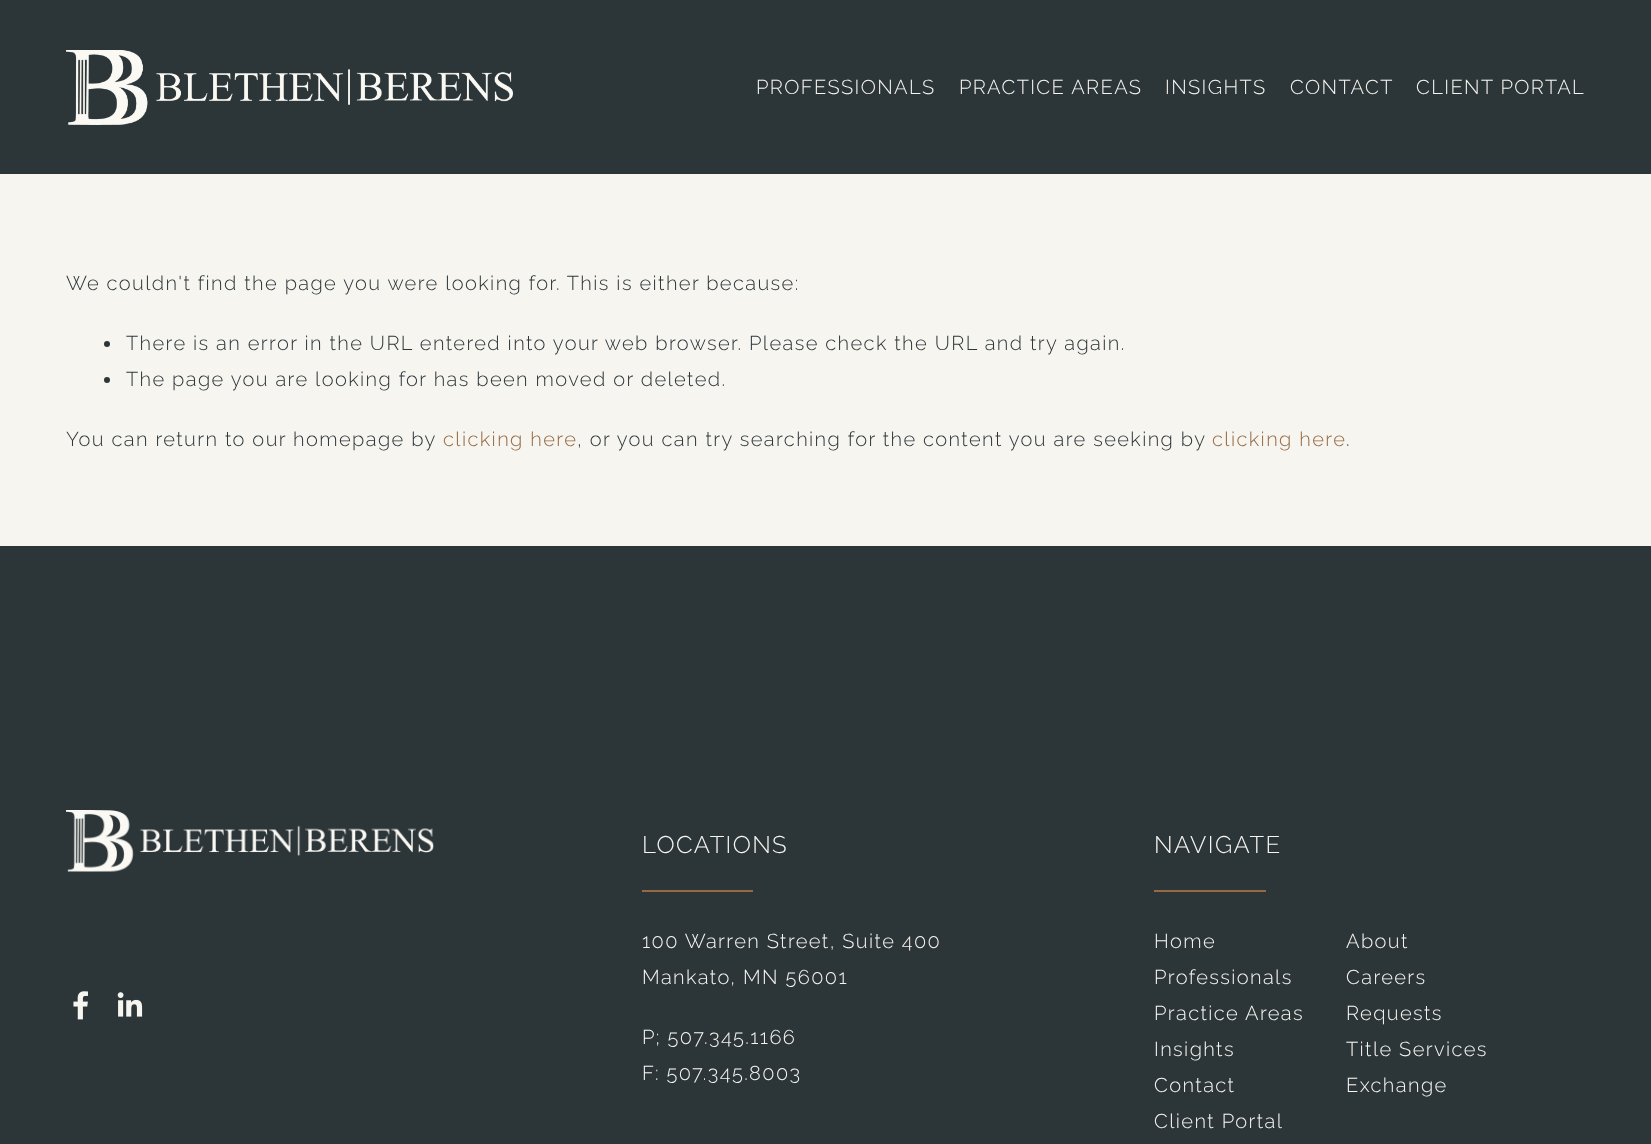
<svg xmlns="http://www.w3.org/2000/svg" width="1651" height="1144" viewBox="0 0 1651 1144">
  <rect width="100%" height="100%" fill="#f7f5f0"/>
  <rect x="0" y="0" width="1651" height="174" fill="#2c3639"/>
  <image x="66" y="50" width="447" height="75" href="img1.png"/>
  <text x="756" y="94" font-family="Raleway" font-size="20.05" font-weight="300" letter-spacing="1.4" fill="#f7f5f0">PROFESSIONALS</text>
  <text x="959" y="94" font-family="Raleway" font-size="20.05" font-weight="300" letter-spacing="1.4" fill="#f7f5f0">PRACTICE AREAS</text>
  <text x="1165" y="94" font-family="Raleway" font-size="20.05" font-weight="300" letter-spacing="1.4" fill="#f7f5f0">INSIGHTS</text>
  <text x="1290" y="94" font-family="Raleway" font-size="20.05" font-weight="300" letter-spacing="1.4" fill="#f7f5f0">CONTACT</text>
  <text x="1416" y="94" font-family="Raleway" font-size="20.05" font-weight="300" letter-spacing="1.4" fill="#f7f5f0">CLIENT PORTAL</text>
  <text x="66" y="290" font-family="Raleway" font-size="20.05" font-weight="300" letter-spacing="1.4" fill="#2c3639">We couldn't find the page you were looking for. This is either because:</text>
  <circle cx="107" cy="344" r="3" fill="#2c3639"/>
  <text x="126" y="350" font-family="Raleway" font-size="20.05" font-weight="300" letter-spacing="1.4" fill="#2c3639">There is an error in the URL entered into your web browser. Please check the URL and try again.</text>
  <circle cx="107" cy="380" r="3" fill="#2c3639"/>
  <text x="126" y="386" font-family="Raleway" font-size="20.05" font-weight="300" letter-spacing="1.4" fill="#2c3639">The page you are looking for has been moved or deleted.</text>
  <text x="66" y="446" font-family="Raleway" font-size="20.05" font-weight="300" letter-spacing="1.4" fill="#2c3639">You can return to our homepage by</text>
  <text x="443" y="446" font-family="Raleway" font-size="20.05" font-weight="300" letter-spacing="1.4" fill="#966944">clicking here</text>
  <text x="577" y="446" font-family="Raleway" font-size="20.05" font-weight="300" letter-spacing="1.4" fill="#2c3639">, or you can try searching for the content you are seeking by</text>
  <text x="1212" y="446" font-family="Raleway" font-size="20.05" font-weight="300" letter-spacing="1.4" fill="#966944">clicking here</text>
  <text x="1346" y="446" font-family="Raleway" font-size="20.05" font-weight="300" letter-spacing="1.4" fill="#2c3639">.</text>
  <rect x="0" y="546" width="1651" height="598" fill="#2c3639"/>
  <image x="66" y="810" width="368" height="62" href="img2.png"/>
  <text x="642" y="853" font-family="Raleway" font-size="24" font-weight="300" letter-spacing="1.4" fill="#f7f5f0">LOCATIONS</text>
  <text x="1154" y="853" font-family="Raleway" font-size="24" font-weight="300" letter-spacing="1.4" fill="#f7f5f0">NAVIGATE</text>
  <rect x="642" y="890" width="111" height="2" fill="#966944"/>
  <rect x="1154" y="890" width="112" height="2" fill="#966944"/>
  <image x="73" y="991" width="15" height="29" href="img3.png"/>
  <image x="117" y="992" width="26" height="25" href="img4.png"/>
  <text x="642" y="948" font-family="Raleway" font-size="20.05" font-weight="300" letter-spacing="1.4" fill="#f7f5f0">100 Warren Street, Suite 400</text>
  <text x="642" y="984" font-family="Raleway" font-size="20.05" font-weight="300" letter-spacing="1.4" fill="#f7f5f0">Mankato, MN 56001</text>
  <text x="642" y="1044" font-family="Raleway" font-size="20.05" font-weight="300" letter-spacing="1.4" fill="#f7f5f0">P; 507.345.1166</text>
  <text x="642" y="1080" font-family="Raleway" font-size="20.05" font-weight="300" letter-spacing="1.4" fill="#f7f5f0">F: 507.345.8003</text>
  <text x="1154" y="948" font-family="Raleway" font-size="20.05" font-weight="300" letter-spacing="1.4" fill="#f7f5f0">Home</text>
  <text x="1154" y="984" font-family="Raleway" font-size="20.05" font-weight="300" letter-spacing="1.4" fill="#f7f5f0">Professionals</text>
  <text x="1154" y="1020" font-family="Raleway" font-size="20.05" font-weight="300" letter-spacing="1.4" fill="#f7f5f0">Practice Areas</text>
  <text x="1154" y="1056" font-family="Raleway" font-size="20.05" font-weight="300" letter-spacing="1.4" fill="#f7f5f0">Insights</text>
  <text x="1154" y="1092" font-family="Raleway" font-size="20.05" font-weight="300" letter-spacing="1.4" fill="#f7f5f0">Contact</text>
  <text x="1154" y="1128" font-family="Raleway" font-size="20.05" font-weight="300" letter-spacing="1.4" fill="#f7f5f0">Client Portal</text>
  <text x="1346" y="948" font-family="Raleway" font-size="20.05" font-weight="300" letter-spacing="1.4" fill="#f7f5f0">About</text>
  <text x="1346" y="984" font-family="Raleway" font-size="20.05" font-weight="300" letter-spacing="1.4" fill="#f7f5f0">Careers</text>
  <text x="1346" y="1020" font-family="Raleway" font-size="20.05" font-weight="300" letter-spacing="1.4" fill="#f7f5f0">Requests</text>
  <text x="1346" y="1056" font-family="Raleway" font-size="20.05" font-weight="300" letter-spacing="1.4" fill="#f7f5f0">Title Services</text>
  <text x="1346" y="1092" font-family="Raleway" font-size="20.05" font-weight="300" letter-spacing="1.4" fill="#f7f5f0">Exchange</text>
</svg>
